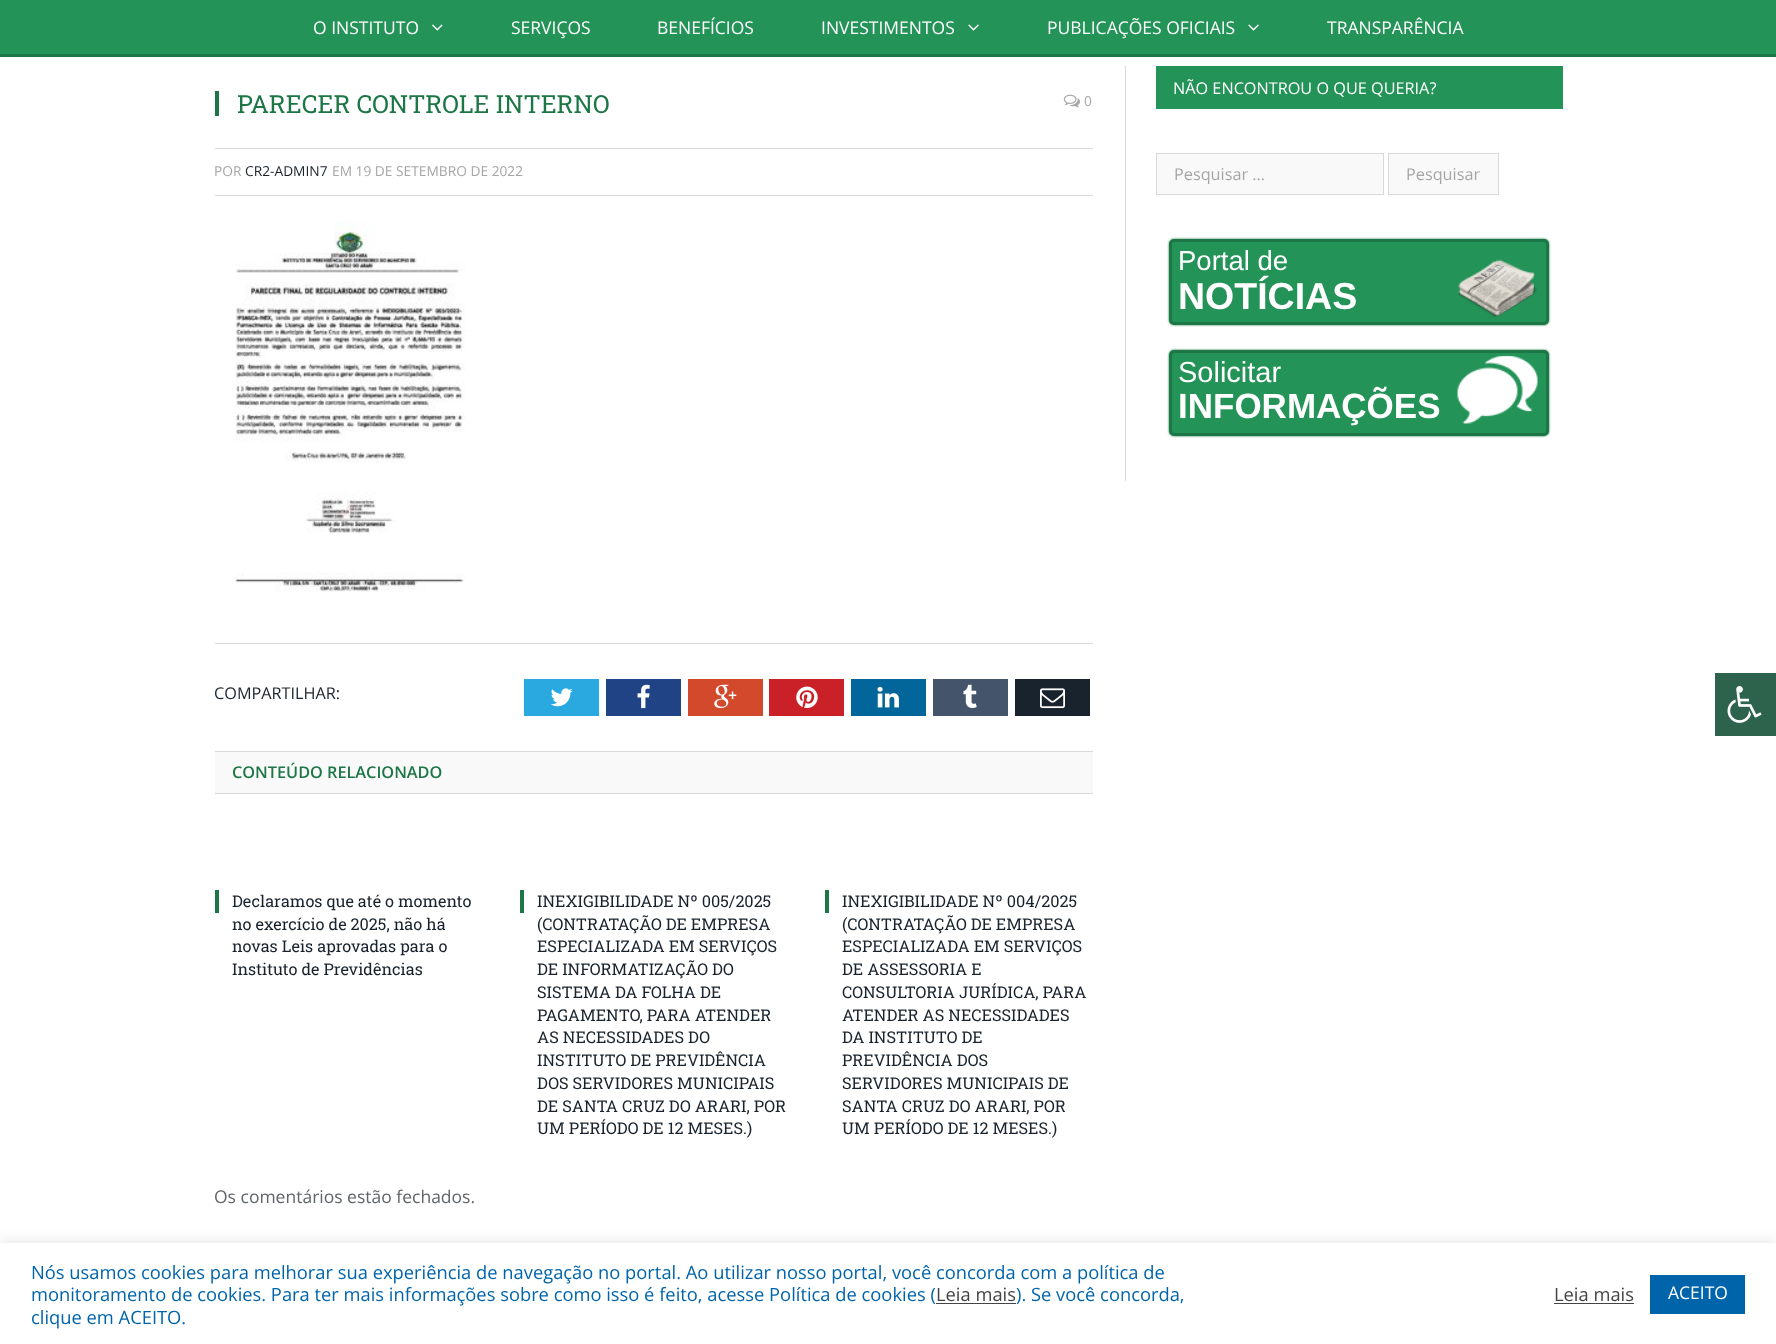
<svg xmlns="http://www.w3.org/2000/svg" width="1776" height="1344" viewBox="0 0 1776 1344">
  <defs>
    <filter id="blur1" x="-50%" y="-200%" width="200%" height="500%"><feGaussianBlur stdDeviation="1"/></filter>
    <filter id="blur2" x="-50%" y="-200%" width="200%" height="500%"><feGaussianBlur stdDeviation="6"/></filter>
  </defs>
  <rect width="100%" height="100%" fill="#ffffff"/>
  <rect x="0" y="0" width="1776" height="54" fill="#239358"/>
  <rect x="0" y="54" width="1776" height="3" fill="#1c7646"/>
  <text x="313" y="34" font-family="Open Sans" font-size="17.5" fill="#ffffff">O INSTITUTO</text>
  <image x="432" y="24" width="11" height="7" href="img1.png"/>
  <text x="511" y="34" font-family="Open Sans" font-size="17.5" fill="#ffffff">SERVIÇOS</text>
  <text x="657" y="34" font-family="Open Sans" font-size="17.5" fill="#ffffff">BENEFÍCIOS</text>
  <text x="821" y="34" font-family="Open Sans" font-size="17.5" fill="#ffffff">INVESTIMENTOS</text>
  <image x="968" y="24" width="11" height="7" href="img2.png"/>
  <text x="1047" y="34" font-family="Open Sans" font-size="17.5" fill="#ffffff">PUBLICAÇÕES OFICIAIS</text>
  <image x="1248" y="24" width="11" height="7" href="img2.png"/>
  <text x="1327" y="34" font-family="Open Sans" font-size="17.5" fill="#ffffff">TRANSPARÊNCIA</text>
  <rect x="215" y="91" width="4" height="25" fill="#1c7646"/>
  <text x="237" y="113" font-family="Roboto Slab" font-size="25" fill="#1c7646">PARECER CONTROLE INTERNO</text>
  <image x="1063" y="94" width="17" height="14" href="img3.png"/>
  <text x="1084" y="106" font-family="Open Sans" font-size="13.75" fill="#a6a6a6">0</text>
  <rect x="215" y="148" width="878" height="1" fill="#d9d9d9"/>
  <rect x="215" y="195" width="878" height="1" fill="#d9d9d9"/>
  <text x="214" y="176" font-family="Open Sans" font-size="13.75" fill="#a6a6a6">POR</text>
  <text x="245" y="176" font-family="Open Sans" font-size="13.75" fill="#19232d">CR2-ADMIN7</text>
  <text x="332" y="176" font-family="Open Sans" font-size="13.75" fill="#a6a6a6">EM 19 DE SETEMBRO DE 2022</text>
  <image x="235" y="222" width="230" height="370" href="img4.png"/>
  <rect x="215" y="643" width="878" height="1" fill="#d9d9d9"/>
  <text x="214" y="699" font-family="Open Sans" font-size="16.25" fill="#19232d">COMPARTILHAR:</text>
  <rect x="524" y="679" width="75" height="37" fill="#2aa9e0"/>
  <image x="550" y="688" width="23" height="19" href="img5.png"/>
  <rect x="606" y="679" width="75" height="37" fill="#204385"/>
  <image x="637" y="684" width="13" height="25" href="img6.png"/>
  <rect x="688" y="679" width="75" height="37" fill="#d3492c"/>
  <image x="714" y="684" width="23" height="24" href="img7.png"/>
  <rect x="769" y="679" width="75" height="37" fill="#ca2128"/>
  <image x="796" y="686" width="22" height="22" href="img8.png"/>
  <rect x="851" y="679" width="75" height="37" fill="#02669a"/>
  <image x="877" y="686" width="22" height="22" href="img9.png"/>
  <rect x="933" y="679" width="75" height="37" fill="#44546b"/>
  <image x="963" y="684" width="14" height="24" href="img10.png"/>
  <rect x="1015" y="679" width="75" height="37" fill="#19232d"/>
  <image x="1040" y="688" width="25" height="21" href="img11.png"/>
  <rect x="215" y="752" width="878" height="41" fill="#f9f9f9"/>
  <rect x="215" y="751" width="878" height="1" fill="#d9d9d9"/>
  <rect x="215" y="793" width="878" height="1" fill="#d9d9d9"/>
  <text x="232" y="778" font-family="Open Sans" font-size="16.25" font-weight="600" fill="#1c7646">CONTEÚDO RELACIONADO</text>
  <rect x="215" y="890" width="4" height="23" fill="#1c7646"/>
  <text x="232" y="907" font-family="Roboto Slab" font-size="16.25" fill="#19232d">Declaramos que até o momento</text>
  <text x="232" y="930" font-family="Roboto Slab" font-size="16.25" fill="#19232d">no exercício de 2025, não há</text>
  <text x="232" y="952" font-family="Roboto Slab" font-size="16.25" fill="#19232d">novas Leis aprovadas para o</text>
  <text x="232" y="975" font-family="Roboto Slab" font-size="16.25" fill="#19232d">Instituto de Previdências</text>
  <rect x="520" y="890" width="4" height="23" fill="#1c7646"/>
  <text x="537" y="907" font-family="Roboto Slab" font-size="16.25" fill="#19232d">INEXIGIBILIDADE Nº 005/2025</text>
  <text x="537" y="930" font-family="Roboto Slab" font-size="16.25" fill="#19232d">(CONTRATAÇÃO DE EMPRESA</text>
  <text x="537" y="952" font-family="Roboto Slab" font-size="16.25" fill="#19232d">ESPECIALIZADA EM SERVIÇOS</text>
  <text x="537" y="975" font-family="Roboto Slab" font-size="16.25" fill="#19232d">DE INFORMATIZAÇÃO DO</text>
  <text x="537" y="998" font-family="Roboto Slab" font-size="16.25" fill="#19232d">SISTEMA DA FOLHA DE</text>
  <text x="537" y="1021" font-family="Roboto Slab" font-size="16.25" fill="#19232d">PAGAMENTO, PARA ATENDER</text>
  <text x="537" y="1043" font-family="Roboto Slab" font-size="16.25" fill="#19232d">AS NECESSIDADES DO</text>
  <text x="537" y="1066" font-family="Roboto Slab" font-size="16.25" fill="#19232d">INSTITUTO DE PREVIDÊNCIA</text>
  <text x="537" y="1089" font-family="Roboto Slab" font-size="16.25" fill="#19232d">DOS SERVIDORES MUNICIPAIS</text>
  <text x="537" y="1112" font-family="Roboto Slab" font-size="16.25" fill="#19232d">DE SANTA CRUZ DO ARARI, POR</text>
  <text x="537" y="1134" font-family="Roboto Slab" font-size="16.25" fill="#19232d">UM PERÍODO DE 12 MESES.)</text>
  <rect x="825" y="890" width="4" height="23" fill="#1c7646"/>
  <text x="842" y="907" font-family="Roboto Slab" font-size="16.25" fill="#19232d">INEXIGIBILIDADE Nº 004/2025</text>
  <text x="842" y="930" font-family="Roboto Slab" font-size="16.25" fill="#19232d">(CONTRATAÇÃO DE EMPRESA</text>
  <text x="842" y="952" font-family="Roboto Slab" font-size="16.25" fill="#19232d">ESPECIALIZADA EM SERVIÇOS</text>
  <text x="842" y="975" font-family="Roboto Slab" font-size="16.25" fill="#19232d">DE ASSESSORIA E</text>
  <text x="842" y="998" font-family="Roboto Slab" font-size="16.25" fill="#19232d">CONSULTORIA JURÍDICA, PARA</text>
  <text x="842" y="1021" font-family="Roboto Slab" font-size="16.25" fill="#19232d">ATENDER AS NECESSIDADES</text>
  <text x="842" y="1043" font-family="Roboto Slab" font-size="16.25" fill="#19232d">DA INSTITUTO DE</text>
  <text x="842" y="1066" font-family="Roboto Slab" font-size="16.25" fill="#19232d">PREVIDÊNCIA DOS</text>
  <text x="842" y="1089" font-family="Roboto Slab" font-size="16.25" fill="#19232d">SERVIDORES MUNICIPAIS DE</text>
  <text x="842" y="1112" font-family="Roboto Slab" font-size="16.25" fill="#19232d">SANTA CRUZ DO ARARI, POR</text>
  <text x="842" y="1134" font-family="Roboto Slab" font-size="16.25" fill="#19232d">UM PERÍODO DE 12 MESES.)</text>
  <text x="214" y="1203" font-family="Open Sans" font-size="17.5" fill="#606569">Os comentários estão fechados.</text>
  <rect x="1125" y="66" width="1" height="415" fill="#d9d9d9"/>
  <rect x="1156" y="66" width="407" height="43" fill="#239358"/>
  <text x="1173" y="94" font-family="Open Sans" font-size="16.25" fill="#ffffff">NÃO ENCONTROU O QUE QUERIA?</text>
  <rect x="1156.5" y="153.5" width="227" height="41" fill="#f9f9f9" stroke="#d9d9d9"/>
  <text x="1174" y="180" font-family="Open Sans" font-size="16.25" fill="#a6a6a6">Pesquisar …</text>
  <rect x="1388.5" y="153.5" width="110" height="41" fill="#f9f9f9" stroke="#d9d9d9"/>
  <text x="1406" y="180" font-family="Open Sans" font-size="16.25" fill="#a6a6a6">Pesquisar</text>
  <rect x="1169" y="239" width="380" height="86" rx="5" fill="#1c7646" filter="url(#blur1)"/>
  <rect x="1170.5" y="240.5" width="377" height="83" rx="3.5" fill="#239357" stroke="#1c7646" stroke-width="3"/>
  <text x="1178" y="270" font-family="Liberation Sans" font-size="27.5" fill="#ffffff">Portal de</text>
  <image x="1458" y="259" width="79" height="59" href="img12.png"/>
  <text x="1178" y="309" font-family="Liberation Sans" font-size="37.5" font-weight="bold" fill="#ffffff">NOTÍCIAS</text>
  <rect x="1169" y="350" width="380" height="86" rx="5" fill="#1c7646" filter="url(#blur1)"/>
  <rect x="1170.5" y="351.5" width="377" height="83" rx="3.5" fill="#239357" stroke="#1c7646" stroke-width="3"/>
  <text x="1178" y="382" font-family="Liberation Sans" font-size="29" fill="#ffffff">Solicitar</text>
  <image x="1457" y="355" width="81" height="69" href="img13.png"/>
  <text x="1178" y="418" font-family="Liberation Sans" font-size="35" font-weight="bold" fill="#ffffff">INFORMAÇÕES</text>
  <rect x="1715" y="673" width="61" height="63" fill="#2d634c"/>
  <image x="1727" y="686" width="35" height="37" href="img14.png"/>
  <rect x="0" y="1241" width="1776" height="103" fill="#acabab" fill-opacity="0.3" filter="url(#blur2)"/>
  <rect x="0" y="1243" width="1776" height="101" fill="#ffffff"/>
  <text x="31" y="1279" font-family="Open Sans" font-size="18.33" fill="#0064ab">Nós usamos cookies para melhorar sua experiência de navegação no portal. Ao utilizar nosso portal, você concorda com a política de</text>
  <text x="31" y="1301" font-family="Open Sans" font-size="18.33" fill="#0064ab">monitoramento de cookies. Para ter mais informações sobre como isso é feito, acesse Política de cookies (</text>
  <text x="936" y="1301" font-family="Open Sans" font-size="18.33" fill="#444444">Leia mais</text>
  <rect x="936" y="1303" width="80" height="1" fill="#444444"/>
  <text x="1016" y="1301" font-family="Open Sans" font-size="18.33" fill="#0064ab">). Se você concorda,</text>
  <text x="31" y="1324" font-family="Open Sans" font-size="18.33" fill="#0064ab">clique em ACEITO.</text>
  <text x="1554" y="1301" font-family="Open Sans" font-size="18.33" fill="#444444">Leia mais</text>
  <rect x="1554" y="1303" width="80" height="1" fill="#444444"/>
  <rect x="1650" y="1275" width="95" height="39" fill="#0064ab"/>
  <text x="1668" y="1299" font-family="Open Sans" font-size="17.5" fill="#ffffff">ACEITO</text>
</svg>
